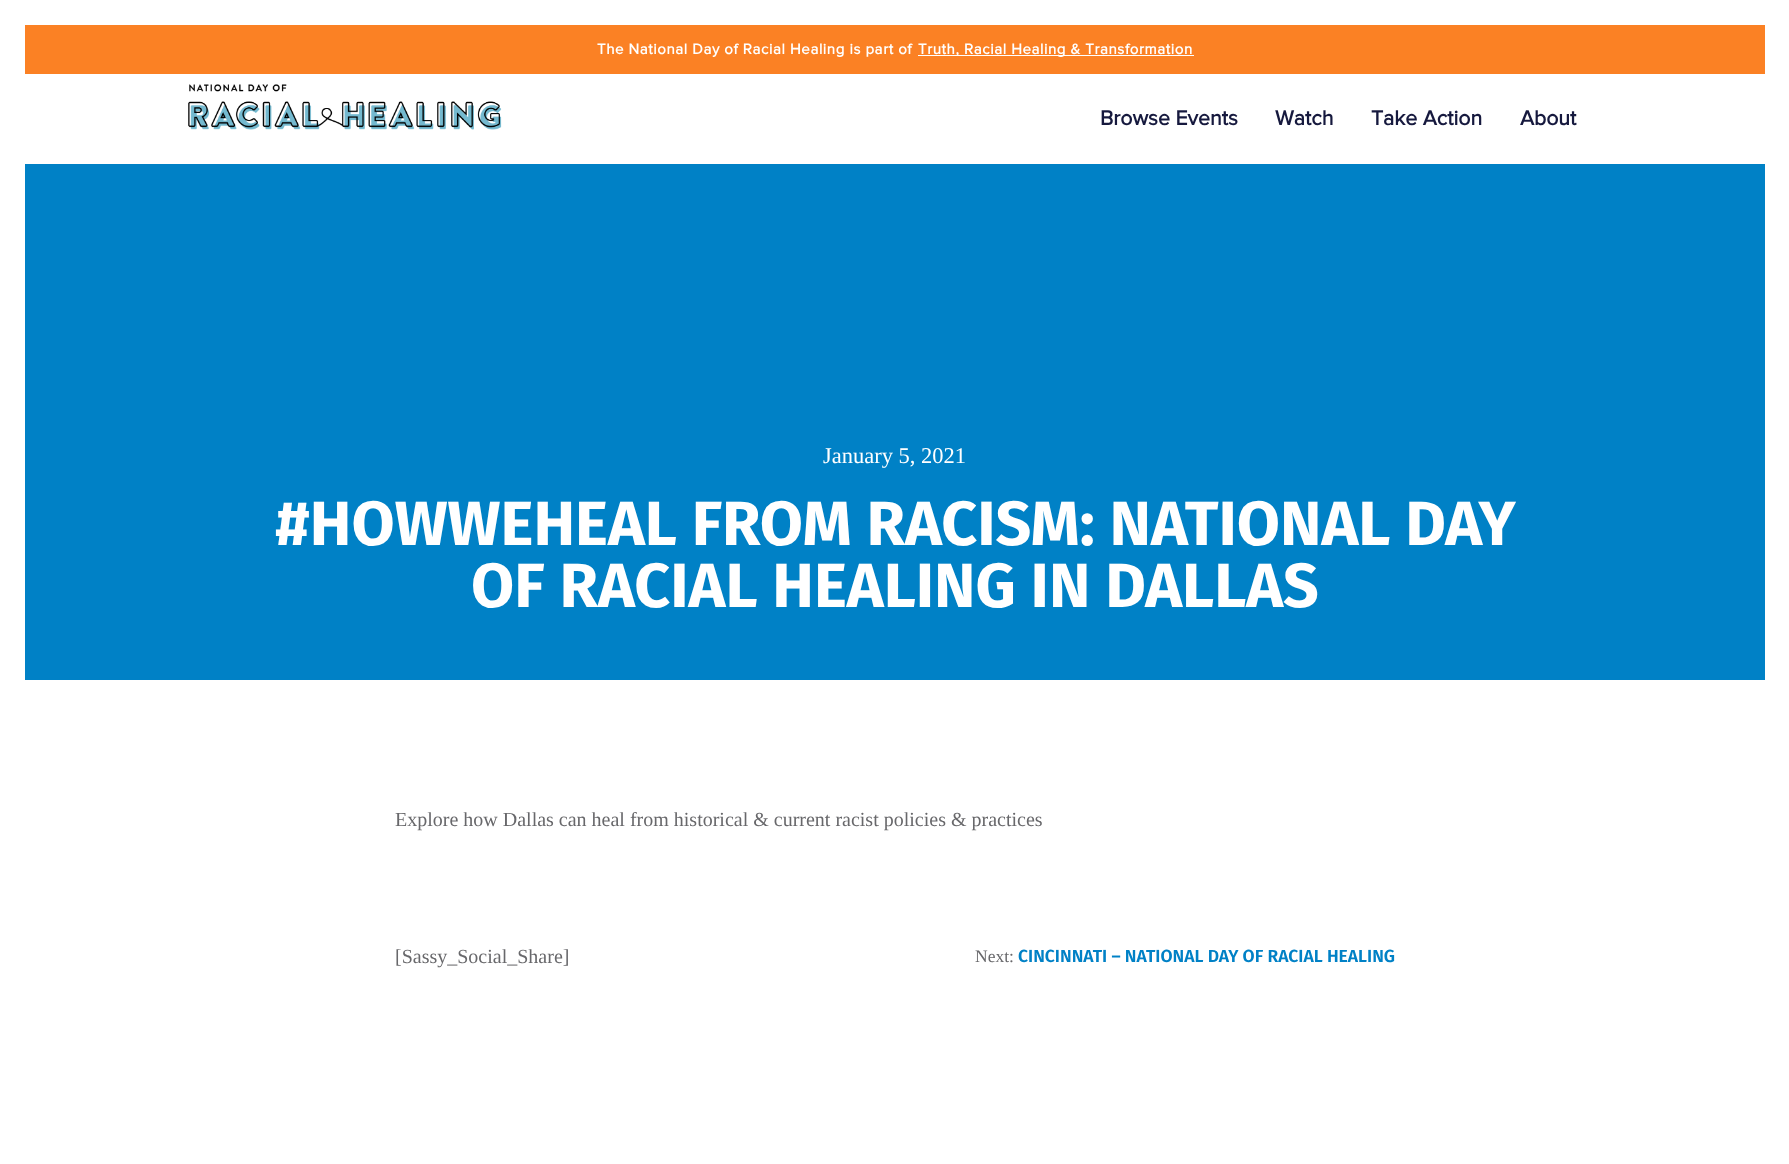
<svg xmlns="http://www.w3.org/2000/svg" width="1789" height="1164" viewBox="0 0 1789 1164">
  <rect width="100%" height="100%" fill="#ffffff"/>
  <rect x="25" y="25" width="1740" height="49" fill="#fb8124"/>
  <text x="597" y="54" font-family="Proxima Nova" font-size="15" font-weight="bold" letter-spacing="0.6" fill="#ffffff">The National Day of Racial Healing is part of</text>
  <rect x="918" y="55" width="276" height="1" fill="#ffffff"/>
  <text x="918" y="54" font-family="Proxima Nova" font-size="15" font-weight="bold" letter-spacing="0.6" fill="#ffffff">Truth, Racial Healing &amp; Transformation</text>
  <image x="188" y="84" width="314" height="46" href="img1.png"/>
  <text x="1100" y="125" font-family="Proxima Nova" font-size="21.25" font-weight="bold" fill="#16193e">Browse Events</text>
  <text x="1275" y="125" font-family="Proxima Nova" font-size="21.25" font-weight="bold" fill="#16193e">Watch</text>
  <text x="1371" y="125" font-family="Proxima Nova" font-size="21.25" font-weight="bold" fill="#16193e">Take Action</text>
  <text x="1520" y="125" font-family="Proxima Nova" font-size="21.25" font-weight="bold" fill="#16193e">About</text>
  <rect x="25" y="164" width="1740" height="516" fill="#0081c6"/>
  <text x="823" y="463" font-family="Liberation Serif" font-size="22.5" fill="#ffffff">January 5, 2021</text>
  <text x="275" y="545" font-family="Fira Sans" font-size="62.5" font-weight="bold" fill="#ffffff">#HOWWEHEAL FROM RACISM: NATIONAL DAY</text>
  <text x="471" y="607" font-family="Fira Sans" font-size="62.5" font-weight="bold" fill="#ffffff">OF RACIAL HEALING IN DALLAS</text>
  <text x="395" y="826" font-family="Liberation Serif" font-size="20" fill="#68686b">Explore how Dallas can heal from historical &amp; current racist policies &amp; practices</text>
  <text x="395" y="963" font-family="Liberation Serif" font-size="20" fill="#68686b">[Sassy_Social_Share]</text>
  <text x="975" y="962" font-family="Liberation Serif" font-size="17.5" fill="#68686b">Next:</text>
  <text x="1018" y="962" font-family="Fira Sans" font-size="17.5" font-weight="600" fill="#0081c6">CINCINNATI – NATIONAL DAY OF RACIAL HEALING</text>
</svg>
